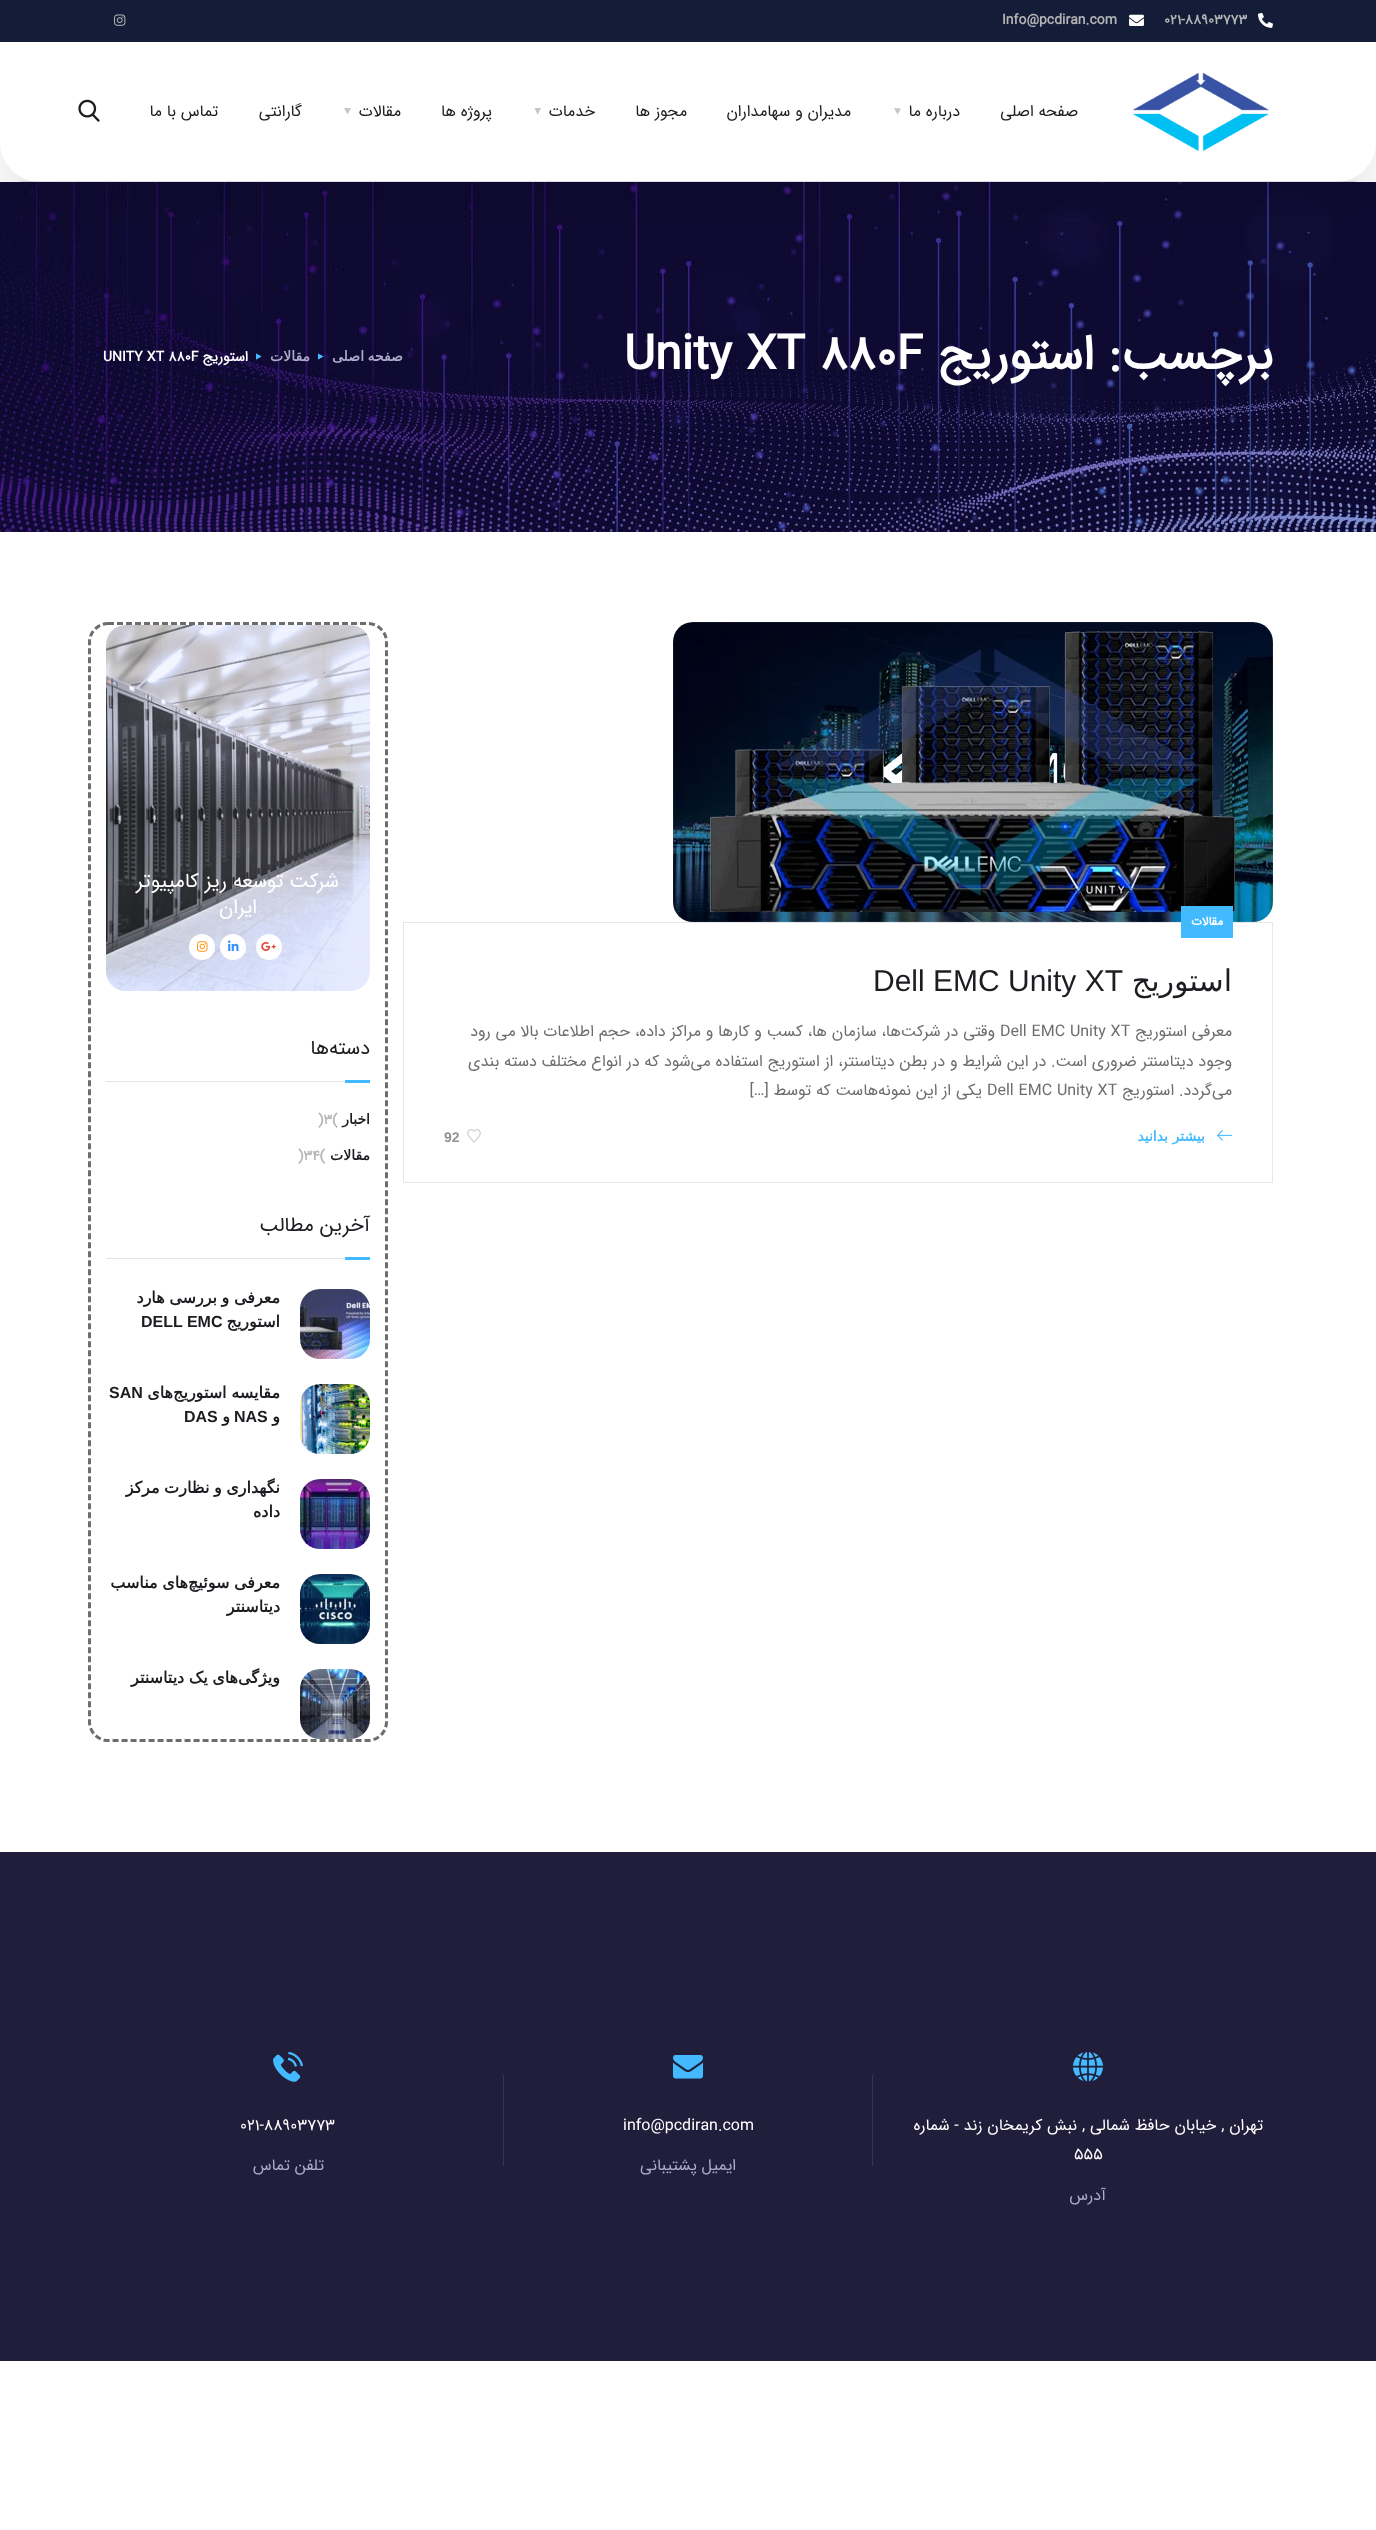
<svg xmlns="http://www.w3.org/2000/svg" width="1376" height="2530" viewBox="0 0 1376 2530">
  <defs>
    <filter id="blur1" x="-50%" y="-200%" width="200%" height="500%"><feGaussianBlur stdDeviation="25"/></filter>
  </defs>
  <rect width="100%" height="100%" fill="#ffffff"/>
  <image x="0" y="182" width="1376" height="350" href="img6.png"/>
  <rect x="3" y="33" width="1370" height="176" rx="37" fill="#000000" fill-opacity="0.1" filter="url(#blur1)"/>
  <rect x="0" y="0" width="1376" height="182" rx="40" fill="#ffffff"/>
  <rect x="20" y="181" width="1336" height="1" fill="#141d38" fill-opacity="0.15"/>
  <rect x="0" y="0" width="1376" height="42" fill="#141d38"/>
  <image x="1258" y="12" width="15" height="16" href="img1.png"/>
  <text x="1164" y="24" font-family="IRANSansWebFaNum" font-size="14" font-weight="bold" fill="#b5b5b5">021-88903773</text>
  <image x="1129" y="14" width="15" height="12" href="img2.png"/>
  <text x="1002" y="24" font-family="IRANSansWebFaNum" font-size="14" font-weight="bold" fill="#b5b5b5">Info@pcdiran.com</text>
  <image x="114" y="14" width="12" height="12" href="img3.png"/>
  <image x="1133" y="72" width="136" height="79" href="img4.png"/>
  <text x="1078" y="116" font-family="IRANSansWebFaNum" font-size="16" direction="rtl" fill="#1b1d21">صفحه اصلی</text>
  <text x="960" y="116" font-family="IRANSansWebFaNum" font-size="16" direction="rtl" fill="#1b1d21">درباره ما</text>
  <path d="M897.5 114.5L894 108L901 108.5Z" fill="#c3c7c9"/>
  <text x="851" y="116" font-family="IRANSansWebFaNum" font-size="16" direction="rtl" fill="#1b1d21">مدیران و سهامداران</text>
  <text x="687" y="116" font-family="IRANSansWebFaNum" font-size="16" direction="rtl" fill="#1b1d21">مجوز ها</text>
  <text x="595" y="116" font-family="IRANSansWebFaNum" font-size="16" direction="rtl" fill="#1b1d21">خدمات</text>
  <path d="M538 114L537.5 114.5L534.5 108H541Z" fill="#c3c7c9"/>
  <text x="492" y="116" font-family="IRANSansWebFaNum" font-size="16" direction="rtl" fill="#1b1d21">پروژه ها</text>
  <text x="401" y="116" font-family="IRANSansWebFaNum" font-size="16" direction="rtl" fill="#1b1d21">مقالات</text>
  <path d="M347.5 114.5L344 108H351Z" fill="#c3c7c9"/>
  <text x="302" y="116" font-family="IRANSansWebFaNum" font-size="16" direction="rtl" fill="#1b1d21">گارانتی</text>
  <text x="218" y="116" font-family="IRANSansWebFaNum" font-size="16" direction="rtl" fill="#1b1d21">تماس با ما</text>
  <image x="78" y="99" width="22" height="23" href="img5.png"/>
  <text x="1273" y="369" font-family="IRANSansWebFaNum" font-size="48" font-weight="bold" direction="rtl" fill="#ffffff">برچسب:</text>
  <text x="1094" y="369" font-family="IRANSansWebFaNum" font-size="48" font-weight="bold" direction="rtl" fill="#ffffff">استوریج</text>
  <text x="624" y="369" font-family="IRANSansWebFaNum" font-size="48" font-weight="bold" fill="#ffffff">Unity XT 880F</text>
  <text x="403" y="361" word-spacing="-1" font-family="DejaVu Sans" font-size="14" font-weight="bold" direction="rtl" fill="#aeaacb">صفحه اصلی</text>
  <image x="318" y="353" width="6" height="7" href="img7.png"/>
  <text x="310" y="361" font-family="DejaVu Sans" font-size="14" font-weight="bold" direction="rtl" fill="#aeaacb">مقالات</text>
  <image x="256" y="353" width="6" height="7" href="img8.png"/>
  <text x="248" y="361" font-family="IRANSansWebFaNum" font-size="14" font-weight="bold" direction="rtl" fill="#ffffff">استوریج</text>
  <text x="103" y="361" font-family="IRANSansWebFaNum" font-size="14" font-weight="bold" fill="#ffffff">UNITY XT 880F</text>
  <image x="673" y="622" width="600" height="300" href="img9.png"/>
  <rect x="403.5" y="922.5" width="869" height="260" fill="none" stroke="#e7e7e7"/>
  <rect x="1181" y="906" width="52" height="32" fill="#43baff"/>
  <text x="1223" y="925" font-family="IRANSansWebFaNum" font-size="12" font-weight="bold" direction="rtl" fill="#ffffff">مقالات</text>
  <text x="1232" y="991" font-family="DejaVu Sans" font-size="30" direction="rtl" fill="#1b1d21">استوریج</text>
  <text x="873" y="991" font-family="Liberation Sans" font-size="30" fill="#1b1d21">Dell EMC Unity XT</text>
  <text x="1232" y="1036" font-family="IRANSansWebFaNum" font-size="16" direction="rtl" fill="#6d6d6d">معرفی استوریج</text>
  <text x="1000" y="1036" font-family="IRANSansWebFaNum" font-size="16" fill="#6d6d6d">Dell EMC Unity XT</text>
  <text x="995" y="1036" font-family="IRANSansWebFaNum" font-size="16" direction="rtl" fill="#6d6d6d">وقتی در شرکت‌ها، سازمان ها، کسب و کارها و مراکز داده، حجم اطلاعات بالا می رود</text>
  <text x="1232" y="1066" font-family="IRANSansWebFaNum" font-size="16" direction="rtl" fill="#6d6d6d">وجود دیتاسنتر ضروری است. در این شرایط و در بطن دیتاسنتر، از استوریج استفاده می‌شود که در انواع مختلف دسته بندی</text>
  <text x="1232" y="1095" font-family="IRANSansWebFaNum" font-size="16" direction="rtl" fill="#6d6d6d">می‌گردد. استوریج</text>
  <text x="987" y="1095" font-family="IRANSansWebFaNum" font-size="16" fill="#6d6d6d">Dell EMC Unity XT</text>
  <text x="982" y="1095" font-family="IRANSansWebFaNum" font-size="16" direction="rtl" fill="#6d6d6d">یکی از این نمونه‌هاست که توسط […]</text>
  <image x="1217" y="1130" width="15" height="11" href="img10.png"/>
  <text x="1205" y="1141" font-family="DejaVu Sans" font-size="14" font-weight="bold" direction="rtl" fill="#43baff">بیشتر بدانید</text>
  <image x="467" y="1129" width="14" height="14" href="img11.png"/>
  <text x="444" y="1142" font-family="Liberation Sans" font-size="14" font-weight="bold" fill="#929292">92</text>
  <path d="M108 623.5H368C378 623.5 386.5 632 386.5 642V1722C386.5 1732 378 1740.5 368 1740.5H108C98 1740.5 89.5 1732 89.5 1722V642C89.5 632 98 623.5 108 623.5Z" fill="none" stroke="#6d6d6d" stroke-width="3" stroke-dasharray="6 3"/>
  <image x="106" y="625" width="264" height="366" href="img12.png"/>
  <text x="339" y="887" font-family="IRANSansWebFaNum" font-size="20" direction="rtl" fill="#ffffff">شرکت توسعه ریز کامپیوتر</text>
  <text x="257" y="913" font-family="IRANSansWebFaNum" font-size="20" direction="rtl" fill="#ffffff">ایران</text>
  <circle cx="269" cy="947" r="13" fill="#ffffff"/>
  <image x="261" y="942" width="15" height="9" href="img13.png"/>
  <circle cx="233" cy="947" r="13" fill="#ffffff"/>
  <image x="228" y="940" width="11" height="11" href="img14.png"/>
  <circle cx="202" cy="947" r="13" fill="#ffffff"/>
  <image x="197" y="941" width="11" height="11" href="img15.png"/>
  <rect x="106" y="1081" width="239" height="1" fill="#e5e5e5"/>
  <text x="370" y="1054" font-family="IRANSansWebFaNum" font-size="20" direction="rtl" fill="#1b1d21">دسته‌ها</text>
  <rect x="345" y="1080" width="25" height="3" fill="#43baff"/>
  <text x="370" y="1124" font-family="DejaVu Sans" font-size="14" font-weight="bold" direction="rtl" fill="#1b1d21">اخبار</text>
  <text x="318" y="1124" font-family="IRANSansWebFaNum" font-size="14" font-weight="bold" fill="#b5b5b5">)3(</text>
  <text x="370" y="1160" font-family="DejaVu Sans" font-size="14" font-weight="bold" direction="rtl" fill="#1b1d21">مقالات</text>
  <text x="298" y="1160" font-family="IRANSansWebFaNum" font-size="14" font-weight="bold" fill="#b5b5b5">)34(</text>
  <rect x="106" y="1258" width="239" height="1" fill="#e5e5e5"/>
  <text x="370" y="1231" font-family="IRANSansWebFaNum" font-size="20" direction="rtl" fill="#1b1d21">آخرین مطالب</text>
  <rect x="345" y="1257" width="25" height="3" fill="#43baff"/>
  <image x="300" y="1289" width="70" height="70" href="img16.png"/>
  <text x="280" y="1303" word-spacing="-0.5" font-family="DejaVu Sans" font-size="16" font-weight="bold" direction="rtl" fill="#1b1d21">معرفی و بررسی هارد</text>
  <text x="280" y="1327" font-family="DejaVu Sans" font-size="16" font-weight="bold" direction="rtl" fill="#1b1d21">استوریج</text>
  <text x="141" y="1327" font-family="Liberation Sans" font-size="16" font-weight="bold" fill="#1b1d21">DELL EMC</text>
  <image x="300" y="1384" width="70" height="70" href="img17.png"/>
  <text x="280" y="1398" word-spacing="-0.5" font-family="DejaVu Sans" font-size="16" font-weight="bold" direction="rtl" fill="#1b1d21">مقایسه استوریج</text>
  <text x="173" y="1398" font-family="DejaVu Sans" font-size="16" font-weight="bold" direction="rtl" fill="#1b1d21">های</text>
  <text x="109" y="1398" font-family="Liberation Sans" font-size="16" font-weight="bold" fill="#1b1d21">SAN</text>
  <text x="280" y="1422" font-family="DejaVu Sans" font-size="16" font-weight="bold" direction="rtl" fill="#1b1d21">و</text>
  <text x="234" y="1422" font-family="Liberation Sans" font-size="16" font-weight="bold" fill="#1b1d21">NAS</text>
  <text x="230" y="1422" font-family="DejaVu Sans" font-size="16" font-weight="bold" direction="rtl" fill="#1b1d21">و</text>
  <text x="184" y="1422" font-family="Liberation Sans" font-size="16" font-weight="bold" fill="#1b1d21">DAS</text>
  <image x="300" y="1479" width="70" height="70" href="img18.png"/>
  <text x="280" y="1493" word-spacing="-0.5" font-family="DejaVu Sans" font-size="16" font-weight="bold" direction="rtl" fill="#1b1d21">نگهداری و نظارت مرکز</text>
  <text x="280" y="1517" font-family="DejaVu Sans" font-size="16" font-weight="bold" direction="rtl" fill="#1b1d21">داده</text>
  <image x="300" y="1574" width="70" height="70" href="img19.png"/>
  <text x="280" y="1588" word-spacing="-0.5" font-family="DejaVu Sans" font-size="16" font-weight="bold" direction="rtl" fill="#1b1d21">معرفی سوئیچ</text>
  <text x="188" y="1588" word-spacing="-0.5" font-family="DejaVu Sans" font-size="16" font-weight="bold" direction="rtl" fill="#1b1d21">های مناسب</text>
  <text x="280" y="1612" font-family="DejaVu Sans" font-size="16" font-weight="bold" direction="rtl" fill="#1b1d21">دیتاسنتر</text>
  <image x="300" y="1669" width="70" height="70" href="img20.png"/>
  <text x="280" y="1683" font-family="DejaVu Sans" font-size="16" font-weight="bold" direction="rtl" fill="#1b1d21">ویژگی</text>
  <text x="238" y="1683" word-spacing="-0.5" font-family="DejaVu Sans" font-size="16" font-weight="bold" direction="rtl" fill="#1b1d21">های یک دیتاسنتر</text>
  <rect x="0" y="1852" width="1376" height="509" fill="#211e3b"/>
  <image x="1073" y="2052" width="30" height="30" href="img21.png"/>
  <text x="1263" y="2130" font-family="IRANSansWebFaNum" font-size="16" direction="rtl" fill="#ffffff">تهران , خیابان حافظ شمالی , نبش کریمخان زند - شماره</text>
  <text x="1074" y="2159" font-family="IRANSansWebFaNum" font-size="16" fill="#ffffff">555</text>
  <text x="1106" y="2200" font-family="IRANSansWebFaNum" font-size="16" direction="rtl" fill="#aeaacb">آدرس</text>
  <image x="673" y="2055" width="30" height="24" href="img22.png"/>
  <rect x="872" y="2075" width="1" height="91" fill="#37354f"/>
  <text x="623" y="2130" font-family="IRANSansWebFaNum" font-size="16" fill="#ffffff">info@pcdiran.com</text>
  <rect x="503" y="2075" width="1" height="91" fill="#37354f"/>
  <text x="736" y="2170" font-family="IRANSansWebFaNum" font-size="16" direction="rtl" fill="#aeaacb">ایمیل پشتیبانی</text>
  <image x="273" y="2052" width="30" height="30" href="img23.png"/>
  <text x="240" y="2130" font-family="IRANSansWebFaNum" font-size="16" fill="#ffffff">021-88903773</text>
  <text x="324" y="2170" font-family="IRANSansWebFaNum" font-size="16" direction="rtl" fill="#aeaacb">تلفن تماس</text>
</svg>
